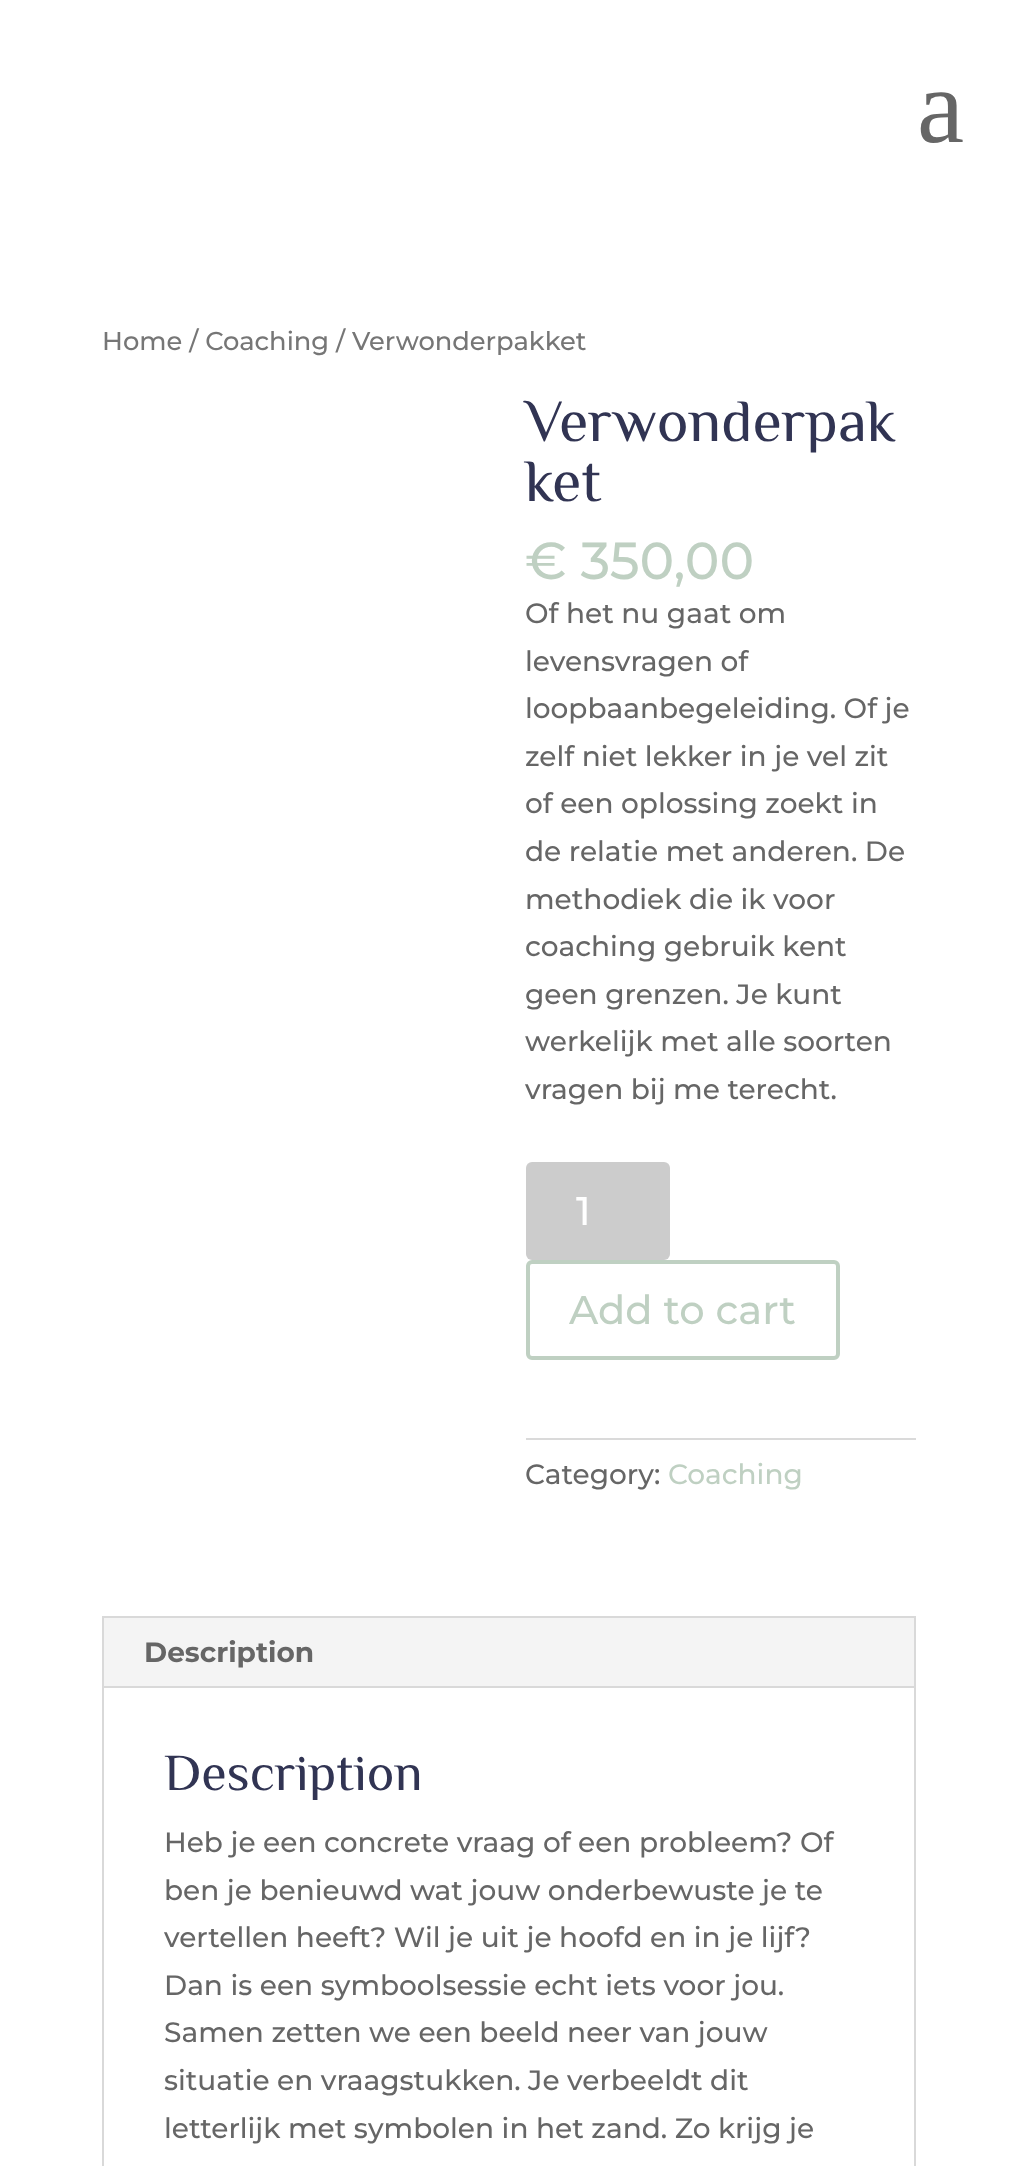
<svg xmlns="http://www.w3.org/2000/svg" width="1018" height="2166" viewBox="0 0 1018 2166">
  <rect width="100%" height="100%" fill="#ffffff"/>
  <text x="917" y="142" font-family="Liberation Serif" font-size="106" fill="#666666">a</text>
  <text x="102" y="350" font-family="Montserrat" font-size="25.75" font-weight="500" fill="#767676">Home / Coaching / Verwonderpakket</text>
  <text x="525" y="441" font-family="Philosopher" font-size="60" fill="#313453">Verwonderpak</text>
  <text x="525" y="501" font-family="Philosopher" font-size="60" fill="#313453">ket</text>
  <text x="525" y="579" font-family="Montserrat" font-size="52" font-weight="500" fill="#bfd0c2">€ 350,00</text>
  <text x="525" y="623" font-family="Montserrat" font-size="28" font-weight="500" fill="#666666">Of het nu gaat om</text>
  <text x="525" y="671" font-family="Montserrat" font-size="28" font-weight="500" fill="#666666">levensvragen of</text>
  <text x="525" y="718" font-family="Montserrat" font-size="28" font-weight="500" fill="#666666">loopbaanbegeleiding. Of je</text>
  <text x="525" y="766" font-family="Montserrat" font-size="28" font-weight="500" fill="#666666">zelf niet lekker in je vel zit</text>
  <text x="525" y="813" font-family="Montserrat" font-size="28" font-weight="500" fill="#666666">of een oplossing zoekt in</text>
  <text x="525" y="861" font-family="Montserrat" font-size="28" font-weight="500" fill="#666666">de relatie met anderen. De</text>
  <text x="525" y="909" font-family="Montserrat" font-size="28" font-weight="500" fill="#666666">methodiek die ik voor</text>
  <text x="525" y="956" font-family="Montserrat" font-size="28" font-weight="500" fill="#666666">coaching gebruik kent</text>
  <text x="525" y="1004" font-family="Montserrat" font-size="28" font-weight="500" fill="#666666">geen grenzen. Je kunt</text>
  <text x="525" y="1051" font-family="Montserrat" font-size="28" font-weight="500" fill="#666666">werkelijk met alle soorten</text>
  <text x="525" y="1099" font-family="Montserrat" font-size="28" font-weight="500" fill="#666666">vragen bij me terecht.</text>
  <rect x="526" y="1162" width="144" height="98" rx="6" fill="#cccccc"/>
  <text x="576" y="1225" font-family="Montserrat" font-size="40" font-weight="500" fill="#ffffff">1</text>
  <rect x="528" y="1262" width="310" height="96" rx="4" fill="none" stroke="#bfd0c2" stroke-width="4"/>
  <text x="569" y="1324" font-family="Montserrat" font-size="40" font-weight="500" fill="#bfd0c2">Add to cart</text>
  <rect x="526" y="1438" width="390" height="2" fill="#dadada"/>
  <text x="525" y="1484" font-family="Montserrat" font-size="28" font-weight="500" fill="#666666">Category:</text>
  <text x="668" y="1484" font-family="Montserrat" font-size="28" font-weight="500" fill="#bfd0c2">Coaching</text>
  <rect x="103" y="1617" width="812" height="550" fill="none" stroke="#d9d9d9" stroke-width="2"/>
  <rect x="104" y="1618" width="810" height="68" fill="#f4f4f4"/>
  <text x="144" y="1662" font-family="Montserrat" font-size="28" font-weight="bold" fill="#666666">Description</text>
  <rect x="104" y="1686" width="810" height="2" fill="#d9d9d9"/>
  <text x="164" y="1790" font-family="Philosopher" font-size="52" fill="#313453">Description</text>
  <text x="164" y="1852" font-family="Montserrat" font-size="28" font-weight="500" fill="#666666">Heb je een concrete vraag of een probleem? Of</text>
  <text x="164" y="1900" font-family="Montserrat" font-size="28" font-weight="500" fill="#666666">ben je benieuwd wat jouw onderbewuste je te</text>
  <text x="164" y="1947" font-family="Montserrat" font-size="28" font-weight="500" fill="#666666">vertellen heeft? Wil je uit je hoofd en in je lijf?</text>
  <text x="164" y="1995" font-family="Montserrat" font-size="28" font-weight="500" fill="#666666">Dan is een symboolsessie echt iets voor jou.</text>
  <text x="164" y="2042" font-family="Montserrat" font-size="28" font-weight="500" fill="#666666">Samen zetten we een beeld neer van jouw</text>
  <text x="164" y="2090" font-family="Montserrat" font-size="28" font-weight="500" fill="#666666">situatie en vraagstukken. Je verbeeldt dit</text>
  <text x="164" y="2138" font-family="Montserrat" font-size="28" font-weight="500" fill="#666666">letterlijk met symbolen in het zand. Zo krijg je</text>
</svg>
